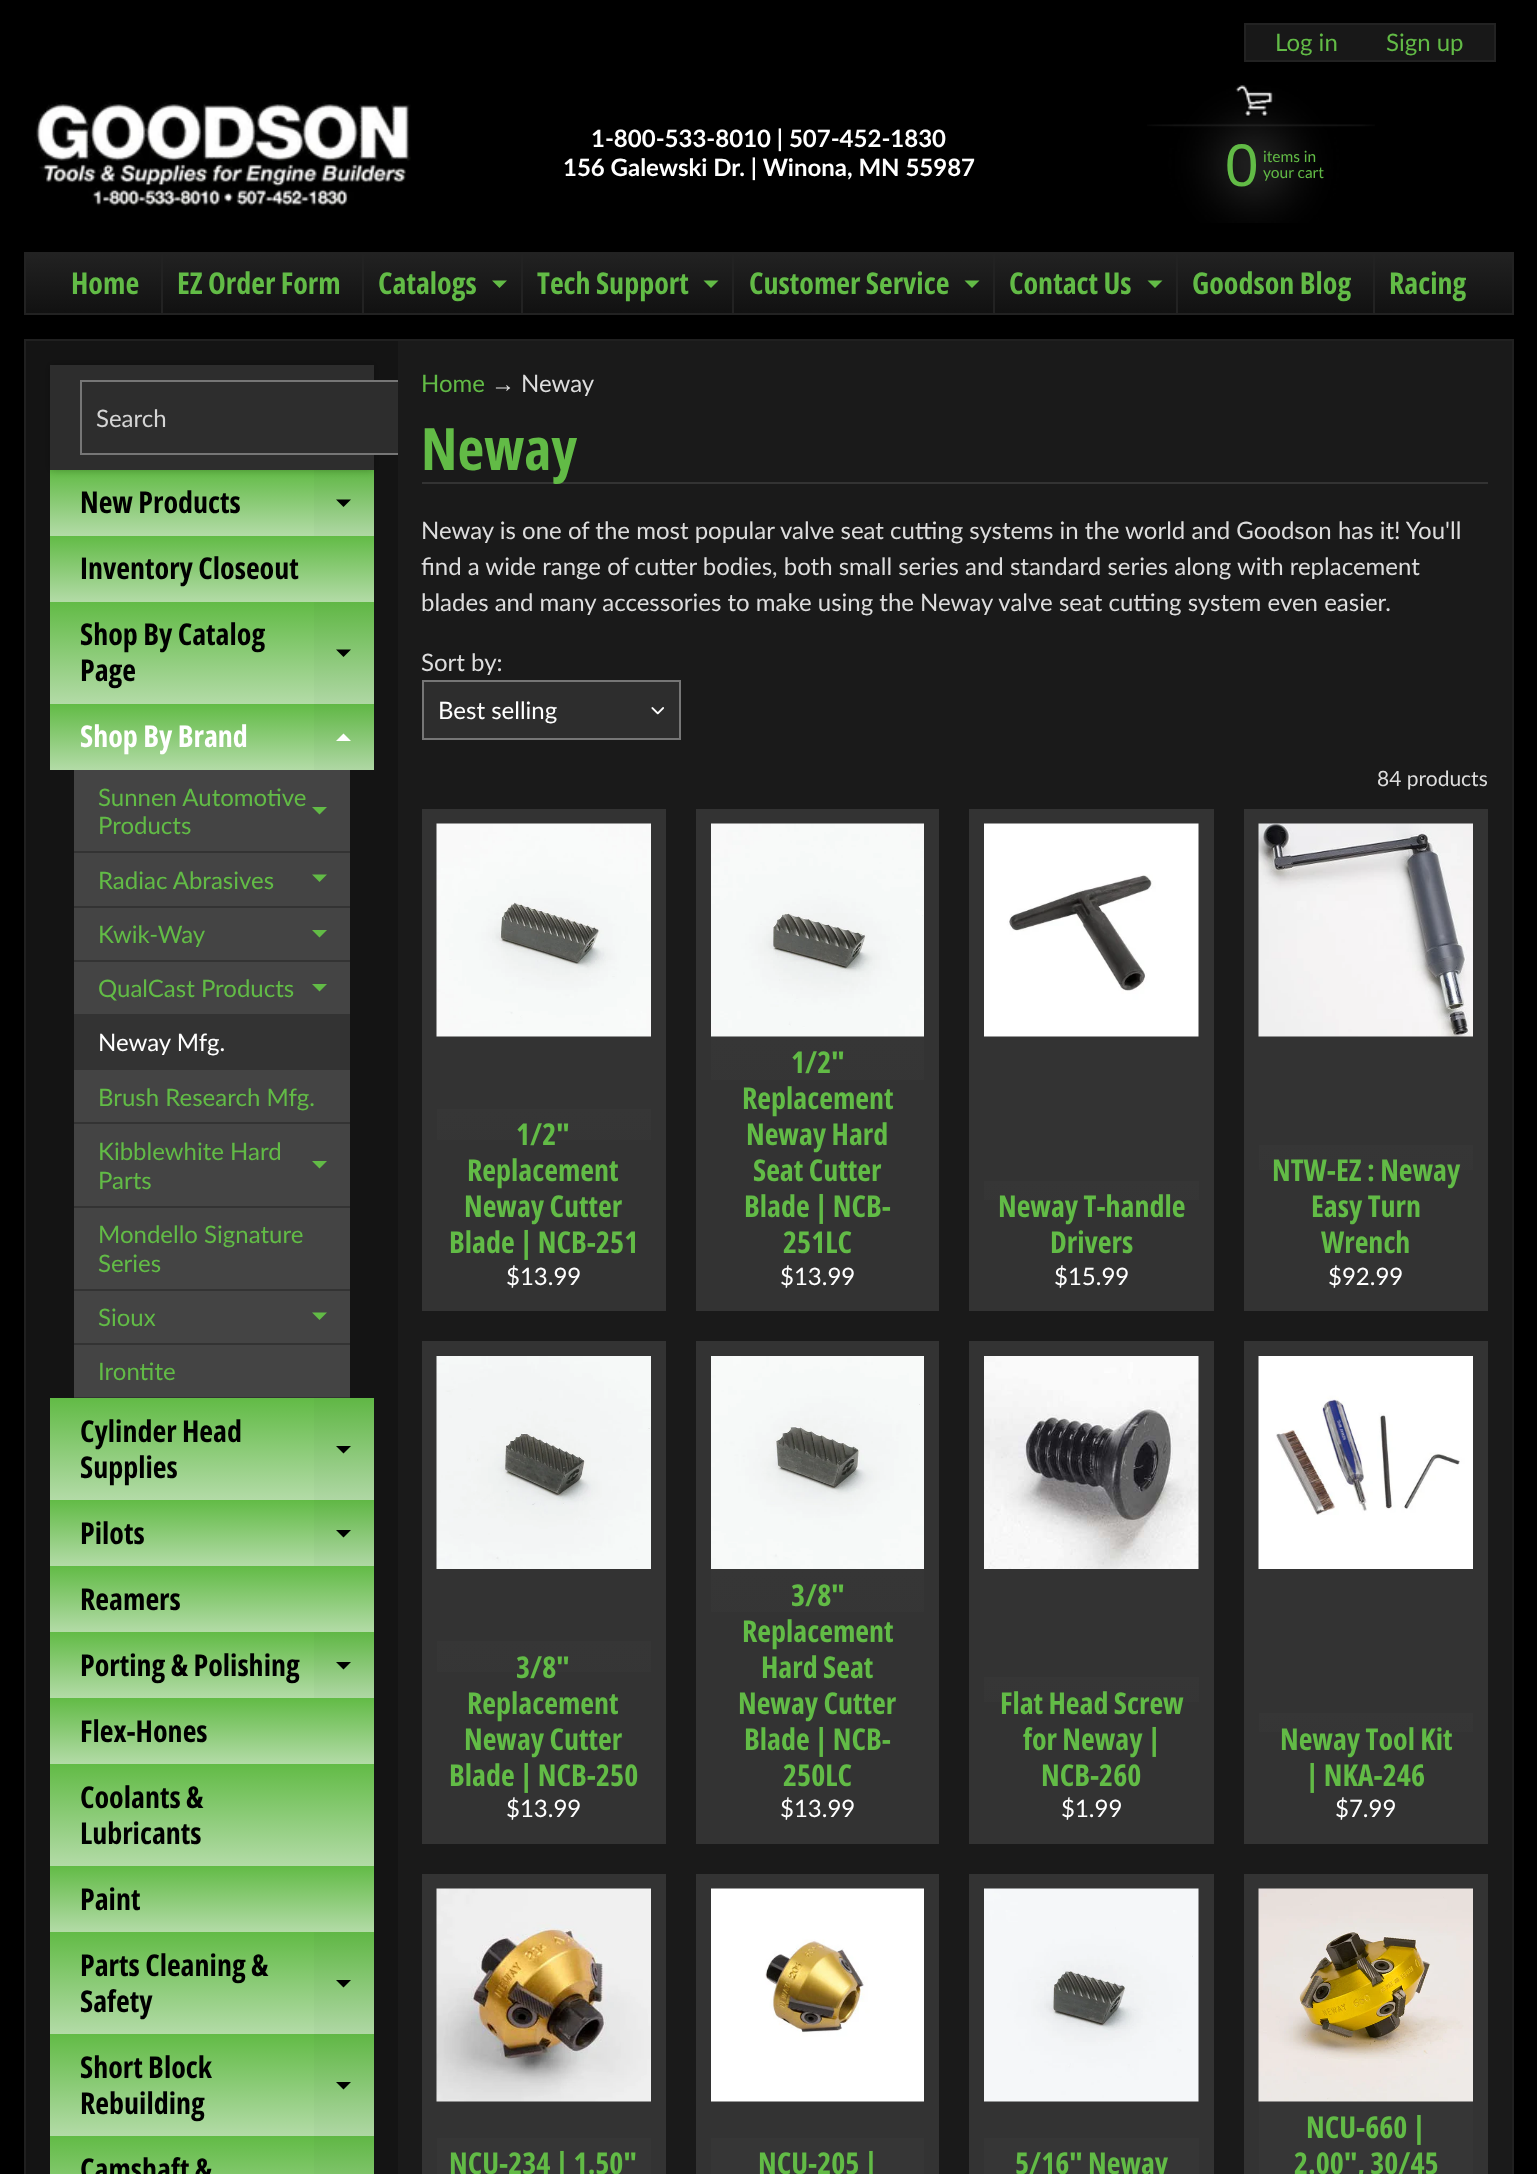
<svg xmlns="http://www.w3.org/2000/svg" width="1537" height="2174" viewBox="0 0 1537 2174">
  <defs>
    <linearGradient id="g1" gradientUnits="userSpaceOnUse" x1="769" y1="253" x2="769" y2="314"><stop offset="0" stop-color="#222222"/><stop offset="1" stop-color="#111111"/></linearGradient>
    <linearGradient id="g2" gradientUnits="userSpaceOnUse" x1="212" y1="470" x2="212" y2="536"><stop offset="0" stop-color="#62bb46"/><stop offset="1" stop-color="#b3dba7"/></linearGradient>
    <linearGradient id="g3" gradientUnits="userSpaceOnUse" x1="212" y1="470" x2="212" y2="536"><stop offset="0" stop-color="#60b745"/><stop offset="1" stop-color="#afd7a4"/></linearGradient>
    <filter id="blur1" x="-50%" y="-200%" width="200%" height="500%"><feGaussianBlur stdDeviation="4"/></filter>
    <clipPath id="clip1"><rect x="26" y="341" width="372" height="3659"/></clipPath>
    <linearGradient id="g4" gradientUnits="userSpaceOnUse" x1="212" y1="536" x2="212" y2="602"><stop offset="0" stop-color="#62bb46"/><stop offset="1" stop-color="#b3dba7"/></linearGradient>
    <linearGradient id="g5" gradientUnits="userSpaceOnUse" x1="212" y1="602" x2="212" y2="704"><stop offset="0" stop-color="#62bb46"/><stop offset="1" stop-color="#b3dba7"/></linearGradient>
    <linearGradient id="g6" gradientUnits="userSpaceOnUse" x1="212" y1="602" x2="212" y2="704"><stop offset="0" stop-color="#60b745"/><stop offset="1" stop-color="#afd7a4"/></linearGradient>
    <linearGradient id="g7" gradientUnits="userSpaceOnUse" x1="212" y1="704" x2="212" y2="770"><stop offset="0" stop-color="#62bb46"/><stop offset="1" stop-color="#b3dba7"/></linearGradient>
    <linearGradient id="g8" gradientUnits="userSpaceOnUse" x1="212" y1="704" x2="212" y2="770"><stop offset="0" stop-color="#60b745"/><stop offset="1" stop-color="#afd7a4"/></linearGradient>
    <linearGradient id="g9" gradientUnits="userSpaceOnUse" x1="212" y1="1398" x2="212" y2="1500"><stop offset="0" stop-color="#62bb46"/><stop offset="1" stop-color="#b3dba7"/></linearGradient>
    <linearGradient id="g10" gradientUnits="userSpaceOnUse" x1="212" y1="1398" x2="212" y2="1500"><stop offset="0" stop-color="#60b745"/><stop offset="1" stop-color="#afd7a4"/></linearGradient>
    <linearGradient id="g11" gradientUnits="userSpaceOnUse" x1="212" y1="1500" x2="212" y2="1566"><stop offset="0" stop-color="#62bb46"/><stop offset="1" stop-color="#b3dba7"/></linearGradient>
    <linearGradient id="g12" gradientUnits="userSpaceOnUse" x1="212" y1="1500" x2="212" y2="1566"><stop offset="0" stop-color="#60b745"/><stop offset="1" stop-color="#afd7a4"/></linearGradient>
    <linearGradient id="g13" gradientUnits="userSpaceOnUse" x1="212" y1="1566" x2="212" y2="1632"><stop offset="0" stop-color="#62bb46"/><stop offset="1" stop-color="#b3dba7"/></linearGradient>
    <linearGradient id="g14" gradientUnits="userSpaceOnUse" x1="212" y1="1632" x2="212" y2="1698"><stop offset="0" stop-color="#62bb46"/><stop offset="1" stop-color="#b3dba7"/></linearGradient>
    <linearGradient id="g15" gradientUnits="userSpaceOnUse" x1="212" y1="1632" x2="212" y2="1698"><stop offset="0" stop-color="#60b745"/><stop offset="1" stop-color="#afd7a4"/></linearGradient>
    <linearGradient id="g16" gradientUnits="userSpaceOnUse" x1="212" y1="1698" x2="212" y2="1764"><stop offset="0" stop-color="#62bb46"/><stop offset="1" stop-color="#b3dba7"/></linearGradient>
    <linearGradient id="g17" gradientUnits="userSpaceOnUse" x1="212" y1="1764" x2="212" y2="1866"><stop offset="0" stop-color="#62bb46"/><stop offset="1" stop-color="#b3dba7"/></linearGradient>
    <linearGradient id="g18" gradientUnits="userSpaceOnUse" x1="212" y1="1866" x2="212" y2="1932"><stop offset="0" stop-color="#62bb46"/><stop offset="1" stop-color="#b3dba7"/></linearGradient>
    <linearGradient id="g19" gradientUnits="userSpaceOnUse" x1="212" y1="1932" x2="212" y2="2034"><stop offset="0" stop-color="#62bb46"/><stop offset="1" stop-color="#b3dba7"/></linearGradient>
    <linearGradient id="g20" gradientUnits="userSpaceOnUse" x1="212" y1="1932" x2="212" y2="2034"><stop offset="0" stop-color="#60b745"/><stop offset="1" stop-color="#afd7a4"/></linearGradient>
    <linearGradient id="g21" gradientUnits="userSpaceOnUse" x1="212" y1="2034" x2="212" y2="2136"><stop offset="0" stop-color="#62bb46"/><stop offset="1" stop-color="#b3dba7"/></linearGradient>
    <linearGradient id="g22" gradientUnits="userSpaceOnUse" x1="212" y1="2034" x2="212" y2="2136"><stop offset="0" stop-color="#60b745"/><stop offset="1" stop-color="#afd7a4"/></linearGradient>
    <linearGradient id="g23" gradientUnits="userSpaceOnUse" x1="212" y1="2136" x2="212" y2="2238"><stop offset="0" stop-color="#62bb46"/><stop offset="1" stop-color="#b3dba7"/></linearGradient>
    <linearGradient id="g24" gradientUnits="userSpaceOnUse" x1="212" y1="2136" x2="212" y2="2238"><stop offset="0" stop-color="#60b745"/><stop offset="1" stop-color="#afd7a4"/></linearGradient>
    <linearGradient id="g25" gradientUnits="userSpaceOnUse" x1="544" y1="1109" x2="544" y2="1296"><stop offset="0" stop-color="#363636"/><stop offset="1" stop-color="#333333"/></linearGradient>
    <linearGradient id="g26" gradientUnits="userSpaceOnUse" x1="818" y1="1037" x2="818" y2="1296"><stop offset="0" stop-color="#363636"/><stop offset="1" stop-color="#333333"/></linearGradient>
    <linearGradient id="g27" gradientUnits="userSpaceOnUse" x1="1091" y1="1181" x2="1091" y2="1296"><stop offset="0" stop-color="#363636"/><stop offset="1" stop-color="#333333"/></linearGradient>
    <linearGradient id="g28" gradientUnits="userSpaceOnUse" x1="1366" y1="1145" x2="1366" y2="1296"><stop offset="0" stop-color="#363636"/><stop offset="1" stop-color="#333333"/></linearGradient>
    <linearGradient id="g29" gradientUnits="userSpaceOnUse" x1="544" y1="1641" x2="544" y2="1829"><stop offset="0" stop-color="#363636"/><stop offset="1" stop-color="#333333"/></linearGradient>
    <linearGradient id="g30" gradientUnits="userSpaceOnUse" x1="818" y1="1569" x2="818" y2="1829"><stop offset="0" stop-color="#363636"/><stop offset="1" stop-color="#333333"/></linearGradient>
    <linearGradient id="g31" gradientUnits="userSpaceOnUse" x1="1091" y1="1677" x2="1091" y2="1829"><stop offset="0" stop-color="#363636"/><stop offset="1" stop-color="#333333"/></linearGradient>
    <linearGradient id="g32" gradientUnits="userSpaceOnUse" x1="1366" y1="1713" x2="1366" y2="1829"><stop offset="0" stop-color="#363636"/><stop offset="1" stop-color="#333333"/></linearGradient>
  </defs>
  <rect width="100%" height="100%" fill="#000000"/>
  <image x="34" y="101" width="377" height="105" href="img1.png"/>
  <text x="591" y="147" font-family="Lato" font-size="24" font-weight="bold" fill="#ffffff">1-800-533-8010 | 507-452-1830</text>
  <text x="563" y="176" font-family="Lato" font-size="24" font-weight="bold" fill="#ffffff">156 Galewski Dr. | Winona, MN 55987</text>
  <rect x="1245" y="24" width="250" height="37" fill="#181818" stroke="#222222" stroke-width="2"/>
  <text x="1275" y="51" font-family="Lato" font-size="24" fill="#62bb46">Log in</text>
  <text x="1386" y="51" font-family="Lato" font-size="24" fill="#62bb46">Sign up</text>
  <image x="1147" y="85" width="228" height="138" href="img2.png"/>
  <text x="1225" y="186" font-family="Liberation Sans" font-size="60" fill="#62bb46">0</text>
  <text x="1263" y="162" font-family="Lato" font-size="15.5" fill="#62bb46">items in</text>
  <text x="1263" y="178" font-family="Lato" font-size="15.5" fill="#62bb46">your cart</text>
  <rect x="26" y="254" width="1486" height="59" fill="url(#g1)"/>
  <rect x="25" y="253" width="1488" height="61" fill="none" stroke="#222222" stroke-width="2"/>
  <text x="71" y="294" font-family="Open Sans Condensed" font-size="30" font-weight="bold" fill="#62bb46">Home</text>
  <rect x="161" y="254" width="2" height="60" fill="#222222"/>
  <text x="177" y="294" font-family="Open Sans Condensed" font-size="30" font-weight="bold" fill="#62bb46">EZ Order Form</text>
  <rect x="362" y="254" width="2" height="60" fill="#222222"/>
  <text x="378" y="294" font-family="Open Sans Condensed" font-size="30" font-weight="bold" fill="#62bb46">Catalogs</text>
  <path d="M492 280.5H507L499.5 288Z" fill="#62bb46"/>
  <rect x="521" y="254" width="2" height="60" fill="#222222"/>
  <text x="537" y="294" font-family="Open Sans Condensed" font-size="30" font-weight="bold" fill="#62bb46">Tech Support</text>
  <path d="M703.5 280.5H718.5L711 288Z" fill="#62bb46"/>
  <rect x="732" y="254" width="2" height="60" fill="#222222"/>
  <text x="749" y="294" font-family="Open Sans Condensed" font-size="30" font-weight="bold" fill="#62bb46">Customer Service</text>
  <path d="M964.5 280.5H979.5L972 288Z" fill="#62bb46"/>
  <rect x="993" y="254" width="2" height="60" fill="#222222"/>
  <text x="1009" y="294" font-family="Open Sans Condensed" font-size="30" font-weight="bold" fill="#62bb46">Contact Us</text>
  <path d="M1147.5 280.5H1162.5L1155 288Z" fill="#62bb46"/>
  <rect x="1176" y="254" width="2" height="60" fill="#222222"/>
  <text x="1192" y="294" font-family="Open Sans Condensed" font-size="30" font-weight="bold" fill="#62bb46">Goodson Blog</text>
  <rect x="1373" y="254" width="2" height="60" fill="#222222"/>
  <text x="1389" y="294" font-family="Open Sans Condensed" font-size="30" font-weight="bold" fill="#62bb46">Racing</text>
  <rect x="398" y="341" width="1114" height="1833" fill="#1a1a1a"/>
  <rect x="25" y="340" width="1488" height="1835" fill="none" stroke="#202020" stroke-width="2"/>
  <rect x="26" y="341" width="372" height="1833" fill="#141414"/>
  <rect x="50" y="470" width="264" height="66" fill="url(#g2)"/>
  <rect x="314" y="470" width="60" height="66" fill="url(#g3)"/>
  <rect x="50" y="365" width="324" height="105" fill="#000000" fill-opacity="0.25" filter="url(#blur1)"/>
  <rect x="50" y="365" width="324" height="105" fill="#2d2d2d"/>
  <rect x="374" y="382" width="24" height="71" fill="#2d2d2d"/>
  <g clip-path="url(#clip1)">
    <rect x="81" y="381" width="332" height="73" fill="none" stroke="#767676" stroke-width="2"/>
  </g>
  <text x="96" y="427" font-family="Lato" font-size="24" fill="#d5d5d5">Search</text>
  <text x="80" y="513" font-family="Open Sans Condensed" font-size="30" font-weight="bold" fill="#000000">New Products</text>
  <path d="M336 499.5H351L343.5 507Z" fill="#000000"/>
  <rect x="50" y="536" width="324" height="66" fill="url(#g4)"/>
  <text x="80" y="579" font-family="Open Sans Condensed" font-size="30" font-weight="bold" fill="#000000">Inventory Closeout</text>
  <rect x="50" y="602" width="264" height="102" fill="url(#g5)"/>
  <rect x="314" y="602" width="60" height="102" fill="url(#g6)"/>
  <text x="80" y="645" font-family="Open Sans Condensed" font-size="30" font-weight="bold" fill="#000000">Shop By Catalog</text>
  <path d="M336 649.5H351L343.5 657Z" fill="#000000"/>
  <text x="80" y="681" font-family="Open Sans Condensed" font-size="30" font-weight="bold" fill="#000000">Page</text>
  <rect x="50" y="704" width="264" height="66" fill="url(#g7)"/>
  <rect x="314" y="704" width="60" height="66" fill="url(#g8)"/>
  <text x="80" y="747" font-family="Open Sans Condensed" font-size="30" font-weight="bold" fill="#ffffff">Shop By Brand</text>
  <path d="M351 741H336L343.5 733.5Z" fill="#ffffff"/>
  <rect x="74" y="770" width="276" height="627" fill="#444444"/>
  <rect x="74" y="851" width="276" height="2" fill="#333333"/>
  <text x="98" y="806" font-family="Lato" font-size="24" fill="#62bb46">Sunnen Automotive</text>
  <path d="M312 807H327L319.5 814.5Z" fill="#62bb46"/>
  <text x="98" y="834" font-family="Lato" font-size="24" fill="#62bb46">Products</text>
  <rect x="74" y="906" width="276" height="2" fill="#333333"/>
  <text x="98" y="889" font-family="Lato" font-size="24" fill="#62bb46">Radiac Abrasives</text>
  <path d="M312 874.5H327L319.5 882Z" fill="#62bb46"/>
  <rect x="74" y="960" width="276" height="2" fill="#333333"/>
  <text x="98" y="943" font-family="Lato" font-size="24" fill="#62bb46">Kwik-Way</text>
  <path d="M312 930H327L319.5 937.5Z" fill="#62bb46"/>
  <rect x="74" y="1014" width="276" height="56" fill="#333333"/>
  <text x="98" y="997" font-family="Lato" font-size="24" fill="#62bb46">QualCast Products</text>
  <path d="M312 984H327L319.5 991.5Z" fill="#62bb46"/>
  <text x="98" y="1051" font-family="Lato" font-size="24" fill="#ffffff">Neway Mfg.</text>
  <rect x="74" y="1122" width="276" height="2" fill="#333333"/>
  <text x="98" y="1106" font-family="Lato" font-size="24" fill="#62bb46">Brush Research Mfg.</text>
  <rect x="74" y="1206" width="276" height="2" fill="#333333"/>
  <text x="98" y="1160" font-family="Lato" font-size="24" fill="#62bb46">Kibblewhite Hard</text>
  <path d="M312 1161H327L319.5 1168.5Z" fill="#62bb46"/>
  <text x="98" y="1189" font-family="Lato" font-size="24" fill="#62bb46">Parts</text>
  <rect x="74" y="1289" width="276" height="2" fill="#333333"/>
  <text x="98" y="1243" font-family="Lato" font-size="24" fill="#62bb46">Mondello Signature</text>
  <text x="98" y="1272" font-family="Lato" font-size="24" fill="#62bb46">Series</text>
  <rect x="74" y="1343" width="276" height="2" fill="#333333"/>
  <text x="98" y="1326" font-family="Lato" font-size="24" fill="#62bb46">Sioux</text>
  <path d="M312 1312.5H327L319.5 1320Z" fill="#62bb46"/>
  <rect x="74" y="1397" width="276" height="1" fill="#333333"/>
  <text x="98" y="1380" font-family="Lato" font-size="24" fill="#62bb46">Irontite</text>
  <rect x="50" y="1398" width="264" height="102" fill="url(#g9)"/>
  <rect x="314" y="1398" width="60" height="102" fill="url(#g10)"/>
  <text x="80" y="1442" font-family="Open Sans Condensed" font-size="30" font-weight="bold" fill="#000000">Cylinder Head</text>
  <path d="M336 1446H351L343.5 1453.5Z" fill="#000000"/>
  <text x="80" y="1478" font-family="Open Sans Condensed" font-size="30" font-weight="bold" fill="#000000">Supplies</text>
  <rect x="50" y="1500" width="264" height="66" fill="url(#g11)"/>
  <rect x="314" y="1500" width="60" height="66" fill="url(#g12)"/>
  <text x="80" y="1544" font-family="Open Sans Condensed" font-size="30" font-weight="bold" fill="#000000">Pilots</text>
  <path d="M336 1530H351L343.5 1537.5Z" fill="#000000"/>
  <rect x="50" y="1566" width="324" height="66" fill="url(#g13)"/>
  <text x="80" y="1610" font-family="Open Sans Condensed" font-size="30" font-weight="bold" fill="#000000">Reamers</text>
  <rect x="50" y="1632" width="264" height="66" fill="url(#g14)"/>
  <rect x="314" y="1632" width="60" height="66" fill="url(#g15)"/>
  <text x="80" y="1676" font-family="Open Sans Condensed" font-size="30" font-weight="bold" fill="#000000">Porting &amp; Polishing</text>
  <path d="M336 1662H351L343.5 1669.5Z" fill="#000000"/>
  <rect x="50" y="1698" width="324" height="66" fill="url(#g16)"/>
  <text x="80" y="1742" font-family="Open Sans Condensed" font-size="30" font-weight="bold" fill="#000000">Flex-Hones</text>
  <rect x="50" y="1764" width="324" height="102" fill="url(#g17)"/>
  <text x="80" y="1808" font-family="Open Sans Condensed" font-size="30" font-weight="bold" fill="#000000">Coolants &amp;</text>
  <text x="80" y="1844" font-family="Open Sans Condensed" font-size="30" font-weight="bold" fill="#000000">Lubricants</text>
  <rect x="50" y="1866" width="324" height="66" fill="url(#g18)"/>
  <text x="80" y="1910" font-family="Open Sans Condensed" font-size="30" font-weight="bold" fill="#000000">Paint</text>
  <rect x="50" y="1932" width="264" height="102" fill="url(#g19)"/>
  <rect x="314" y="1932" width="60" height="102" fill="url(#g20)"/>
  <text x="80" y="1976" font-family="Open Sans Condensed" font-size="30" font-weight="bold" fill="#000000">Parts Cleaning &amp;</text>
  <path d="M336 1980H351L343.5 1987.5Z" fill="#000000"/>
  <text x="80" y="2012" font-family="Open Sans Condensed" font-size="30" font-weight="bold" fill="#000000">Safety</text>
  <rect x="50" y="2034" width="264" height="102" fill="url(#g21)"/>
  <rect x="314" y="2034" width="60" height="102" fill="url(#g22)"/>
  <text x="80" y="2078" font-family="Open Sans Condensed" font-size="30" font-weight="bold" fill="#000000">Short Block</text>
  <path d="M336 2082H351L343.5 2089.5Z" fill="#000000"/>
  <text x="80" y="2114" font-family="Open Sans Condensed" font-size="30" font-weight="bold" fill="#000000">Rebuilding</text>
  <rect x="50" y="2136" width="264" height="38" fill="url(#g23)"/>
  <rect x="314" y="2136" width="60" height="38" fill="url(#g24)"/>
  <text x="80" y="2180" font-family="Open Sans Condensed" font-size="30" font-weight="bold" fill="#000000">Camshaft &amp;</text>
  <text x="421" y="392" font-family="Lato" font-size="24" fill="#62bb46">Home</text>
  <text x="491" y="392" font-family="Liberation Sans" font-size="24" fill="#dddddd">→</text>
  <text x="521" y="392" font-family="Lato" font-size="24" fill="#dddddd">Neway</text>
  <rect x="422" y="482" width="1066" height="2" fill="#333333"/>
  <text x="421" y="470" font-family="Open Sans Condensed" font-size="58.5" font-weight="bold" fill="#62bb46">Neway</text>
  <text x="421" y="539" font-family="Lato" font-size="24" fill="#dddddd">Neway is one of the most popular valve seat cutting systems in the world and Goodson has it! You'll</text>
  <text x="421" y="575" font-family="Lato" font-size="24" fill="#dddddd">find a wide range of cutter bodies, both small series and standard series along with replacement</text>
  <text x="421" y="611" font-family="Lato" font-size="24" fill="#dddddd">blades and many accessories to make using the Neway valve seat cutting system even easier.</text>
  <text x="421" y="671" font-family="Lato" font-size="24" fill="#dddddd">Sort by:</text>
  <rect x="424" y="682" width="255" height="56" fill="#2d2d2d"/>
  <image x="651" y="707" width="13" height="8" href="img3.png"/>
  <rect x="423" y="681" width="257" height="58" fill="none" stroke="#767676" stroke-width="2"/>
  <text x="438" y="719" font-family="Lato" font-size="24" fill="#ffffff">Best selling</text>
  <text x="1377" y="786" font-family="Lato" font-size="21" fill="#dddddd">84 products</text>
  <rect x="422" y="809" width="244" height="502" fill="#333333"/>
  <image x="436" y="823" width="215" height="214" href="img4.png"/>
  <rect x="437" y="1109" width="214" height="31" fill="url(#g25)"/>
  <text x="516" y="1145" font-family="Open Sans Condensed" font-size="30" font-weight="bold" fill="#62bb46">1/2"</text>
  <text x="467" y="1181" font-family="Open Sans Condensed" font-size="30" font-weight="bold" fill="#62bb46">Replacement</text>
  <text x="464" y="1217" font-family="Open Sans Condensed" font-size="30" font-weight="bold" fill="#62bb46">Neway Cutter</text>
  <text x="449" y="1253" font-family="Open Sans Condensed" font-size="30" font-weight="bold" fill="#62bb46">Blade | NCB-251</text>
  <text x="506" y="1285" font-family="Lato" font-size="24" fill="#ffffff">$13.99</text>
  <rect x="696" y="809" width="243" height="502" fill="#333333"/>
  <image x="711" y="823" width="213" height="214" href="img5.png"/>
  <rect x="711" y="1037" width="213" height="43" fill="url(#g26)"/>
  <text x="791" y="1073" font-family="Open Sans Condensed" font-size="30" font-weight="bold" fill="#62bb46">1/2"</text>
  <text x="742" y="1109" font-family="Open Sans Condensed" font-size="30" font-weight="bold" fill="#62bb46">Replacement</text>
  <text x="746" y="1145" font-family="Open Sans Condensed" font-size="30" font-weight="bold" fill="#62bb46">Neway Hard</text>
  <text x="753" y="1181" font-family="Open Sans Condensed" font-size="30" font-weight="bold" fill="#62bb46">Seat Cutter</text>
  <text x="744" y="1217" font-family="Open Sans Condensed" font-size="30" font-weight="bold" fill="#62bb46">Blade | NCB-</text>
  <text x="783" y="1253" font-family="Open Sans Condensed" font-size="30" font-weight="bold" fill="#62bb46">251LC</text>
  <text x="780" y="1285" font-family="Lato" font-size="24" fill="#ffffff">$13.99</text>
  <rect x="969" y="809" width="245" height="502" fill="#333333"/>
  <image x="984" y="823" width="215" height="214" href="img6.png"/>
  <rect x="984" y="1181" width="215" height="19" fill="url(#g27)"/>
  <text x="998" y="1217" font-family="Open Sans Condensed" font-size="30" font-weight="bold" fill="#62bb46">Neway T-handle</text>
  <text x="1050" y="1253" font-family="Open Sans Condensed" font-size="30" font-weight="bold" fill="#62bb46">Drivers</text>
  <text x="1054" y="1285" font-family="Lato" font-size="24" fill="#ffffff">$15.99</text>
  <rect x="1244" y="809" width="244" height="502" fill="#333333"/>
  <image x="1258" y="823" width="215" height="214" href="img7.png"/>
  <rect x="1259" y="1145" width="214" height="25" fill="url(#g28)"/>
  <text x="1272" y="1181" font-family="Open Sans Condensed" font-size="30" font-weight="bold" fill="#62bb46">NTW-EZ : Neway</text>
  <text x="1311" y="1217" font-family="Open Sans Condensed" font-size="30" font-weight="bold" fill="#62bb46">Easy Turn</text>
  <text x="1321" y="1253" font-family="Open Sans Condensed" font-size="30" font-weight="bold" fill="#62bb46">Wrench</text>
  <text x="1328" y="1285" font-family="Lato" font-size="24" fill="#ffffff">$92.99</text>
  <rect x="422" y="1341" width="244" height="503" fill="#333333"/>
  <image x="436" y="1356" width="215" height="213" href="img8.png"/>
  <rect x="437" y="1641" width="214" height="31" fill="url(#g29)"/>
  <text x="516" y="1678" font-family="Open Sans Condensed" font-size="30" font-weight="bold" fill="#62bb46">3/8"</text>
  <text x="467" y="1714" font-family="Open Sans Condensed" font-size="30" font-weight="bold" fill="#62bb46">Replacement</text>
  <text x="464" y="1750" font-family="Open Sans Condensed" font-size="30" font-weight="bold" fill="#62bb46">Neway Cutter</text>
  <text x="449" y="1786" font-family="Open Sans Condensed" font-size="30" font-weight="bold" fill="#62bb46">Blade | NCB-250</text>
  <text x="506" y="1817" font-family="Lato" font-size="24" fill="#ffffff">$13.99</text>
  <rect x="696" y="1341" width="243" height="503" fill="#333333"/>
  <image x="711" y="1356" width="213" height="213" href="img9.png"/>
  <rect x="711" y="1569" width="213" height="43" fill="url(#g30)"/>
  <text x="791" y="1606" font-family="Open Sans Condensed" font-size="30" font-weight="bold" fill="#62bb46">3/8"</text>
  <text x="742" y="1642" font-family="Open Sans Condensed" font-size="30" font-weight="bold" fill="#62bb46">Replacement</text>
  <text x="761" y="1678" font-family="Open Sans Condensed" font-size="30" font-weight="bold" fill="#62bb46">Hard Seat</text>
  <text x="738" y="1714" font-family="Open Sans Condensed" font-size="30" font-weight="bold" fill="#62bb46">Neway Cutter</text>
  <text x="744" y="1750" font-family="Open Sans Condensed" font-size="30" font-weight="bold" fill="#62bb46">Blade | NCB-</text>
  <text x="783" y="1786" font-family="Open Sans Condensed" font-size="30" font-weight="bold" fill="#62bb46">250LC</text>
  <text x="780" y="1817" font-family="Lato" font-size="24" fill="#ffffff">$13.99</text>
  <rect x="969" y="1341" width="245" height="503" fill="#333333"/>
  <image x="984" y="1356" width="215" height="213" href="img10.png"/>
  <rect x="984" y="1677" width="215" height="25" fill="url(#g31)"/>
  <text x="1000" y="1714" font-family="Open Sans Condensed" font-size="30" font-weight="bold" fill="#62bb46">Flat Head Screw</text>
  <text x="1023" y="1750" font-family="Open Sans Condensed" font-size="30" font-weight="bold" fill="#62bb46">for Neway |</text>
  <text x="1041" y="1786" font-family="Open Sans Condensed" font-size="30" font-weight="bold" fill="#62bb46">NCB-260</text>
  <text x="1061" y="1817" font-family="Lato" font-size="24" fill="#ffffff">$1.99</text>
  <rect x="1244" y="1341" width="244" height="503" fill="#333333"/>
  <image x="1258" y="1356" width="215" height="213" href="img11.png"/>
  <rect x="1259" y="1713" width="214" height="19" fill="url(#g32)"/>
  <text x="1280" y="1750" font-family="Open Sans Condensed" font-size="30" font-weight="bold" fill="#62bb46">Neway Tool Kit</text>
  <text x="1306" y="1786" font-family="Open Sans Condensed" font-size="30" font-weight="bold" fill="#62bb46">| NKA-246</text>
  <text x="1335" y="1817" font-family="Lato" font-size="24" fill="#ffffff">$7.99</text>
  <rect x="422" y="1874" width="244" height="300" fill="#333333"/>
  <image x="436" y="1888" width="215" height="214" href="img12.png"/>
  <rect x="437" y="2138" width="214" height="36" fill="#363636"/>
  <text x="449" y="2174" font-family="Open Sans Condensed" font-size="30" font-weight="bold" fill="#62bb46">NCU-234 | 1.50"</text>
  <rect x="696" y="1874" width="243" height="300" fill="#333333"/>
  <image x="711" y="1888" width="213" height="214" href="img13.png"/>
  <rect x="711" y="2138" width="213" height="36" fill="#363636"/>
  <text x="758" y="2174" font-family="Open Sans Condensed" font-size="30" font-weight="bold" fill="#62bb46">NCU-205 |</text>
  <rect x="969" y="1874" width="245" height="300" fill="#333333"/>
  <image x="984" y="1888" width="215" height="214" href="img14.png"/>
  <rect x="984" y="2138" width="215" height="36" fill="#363636"/>
  <text x="1015" y="2174" font-family="Open Sans Condensed" font-size="30" font-weight="bold" fill="#62bb46">5/16" Neway</text>
  <rect x="1244" y="1874" width="244" height="300" fill="#333333"/>
  <image x="1258" y="1888" width="215" height="214" href="img15.png"/>
  <rect x="1259" y="2102" width="214" height="72" fill="#363636"/>
  <text x="1306" y="2138" font-family="Open Sans Condensed" font-size="30" font-weight="bold" fill="#62bb46">NCU-660 |</text>
  <text x="1294" y="2174" font-family="Open Sans Condensed" font-size="30" font-weight="bold" fill="#62bb46">2.00", 30/45</text>
</svg>
